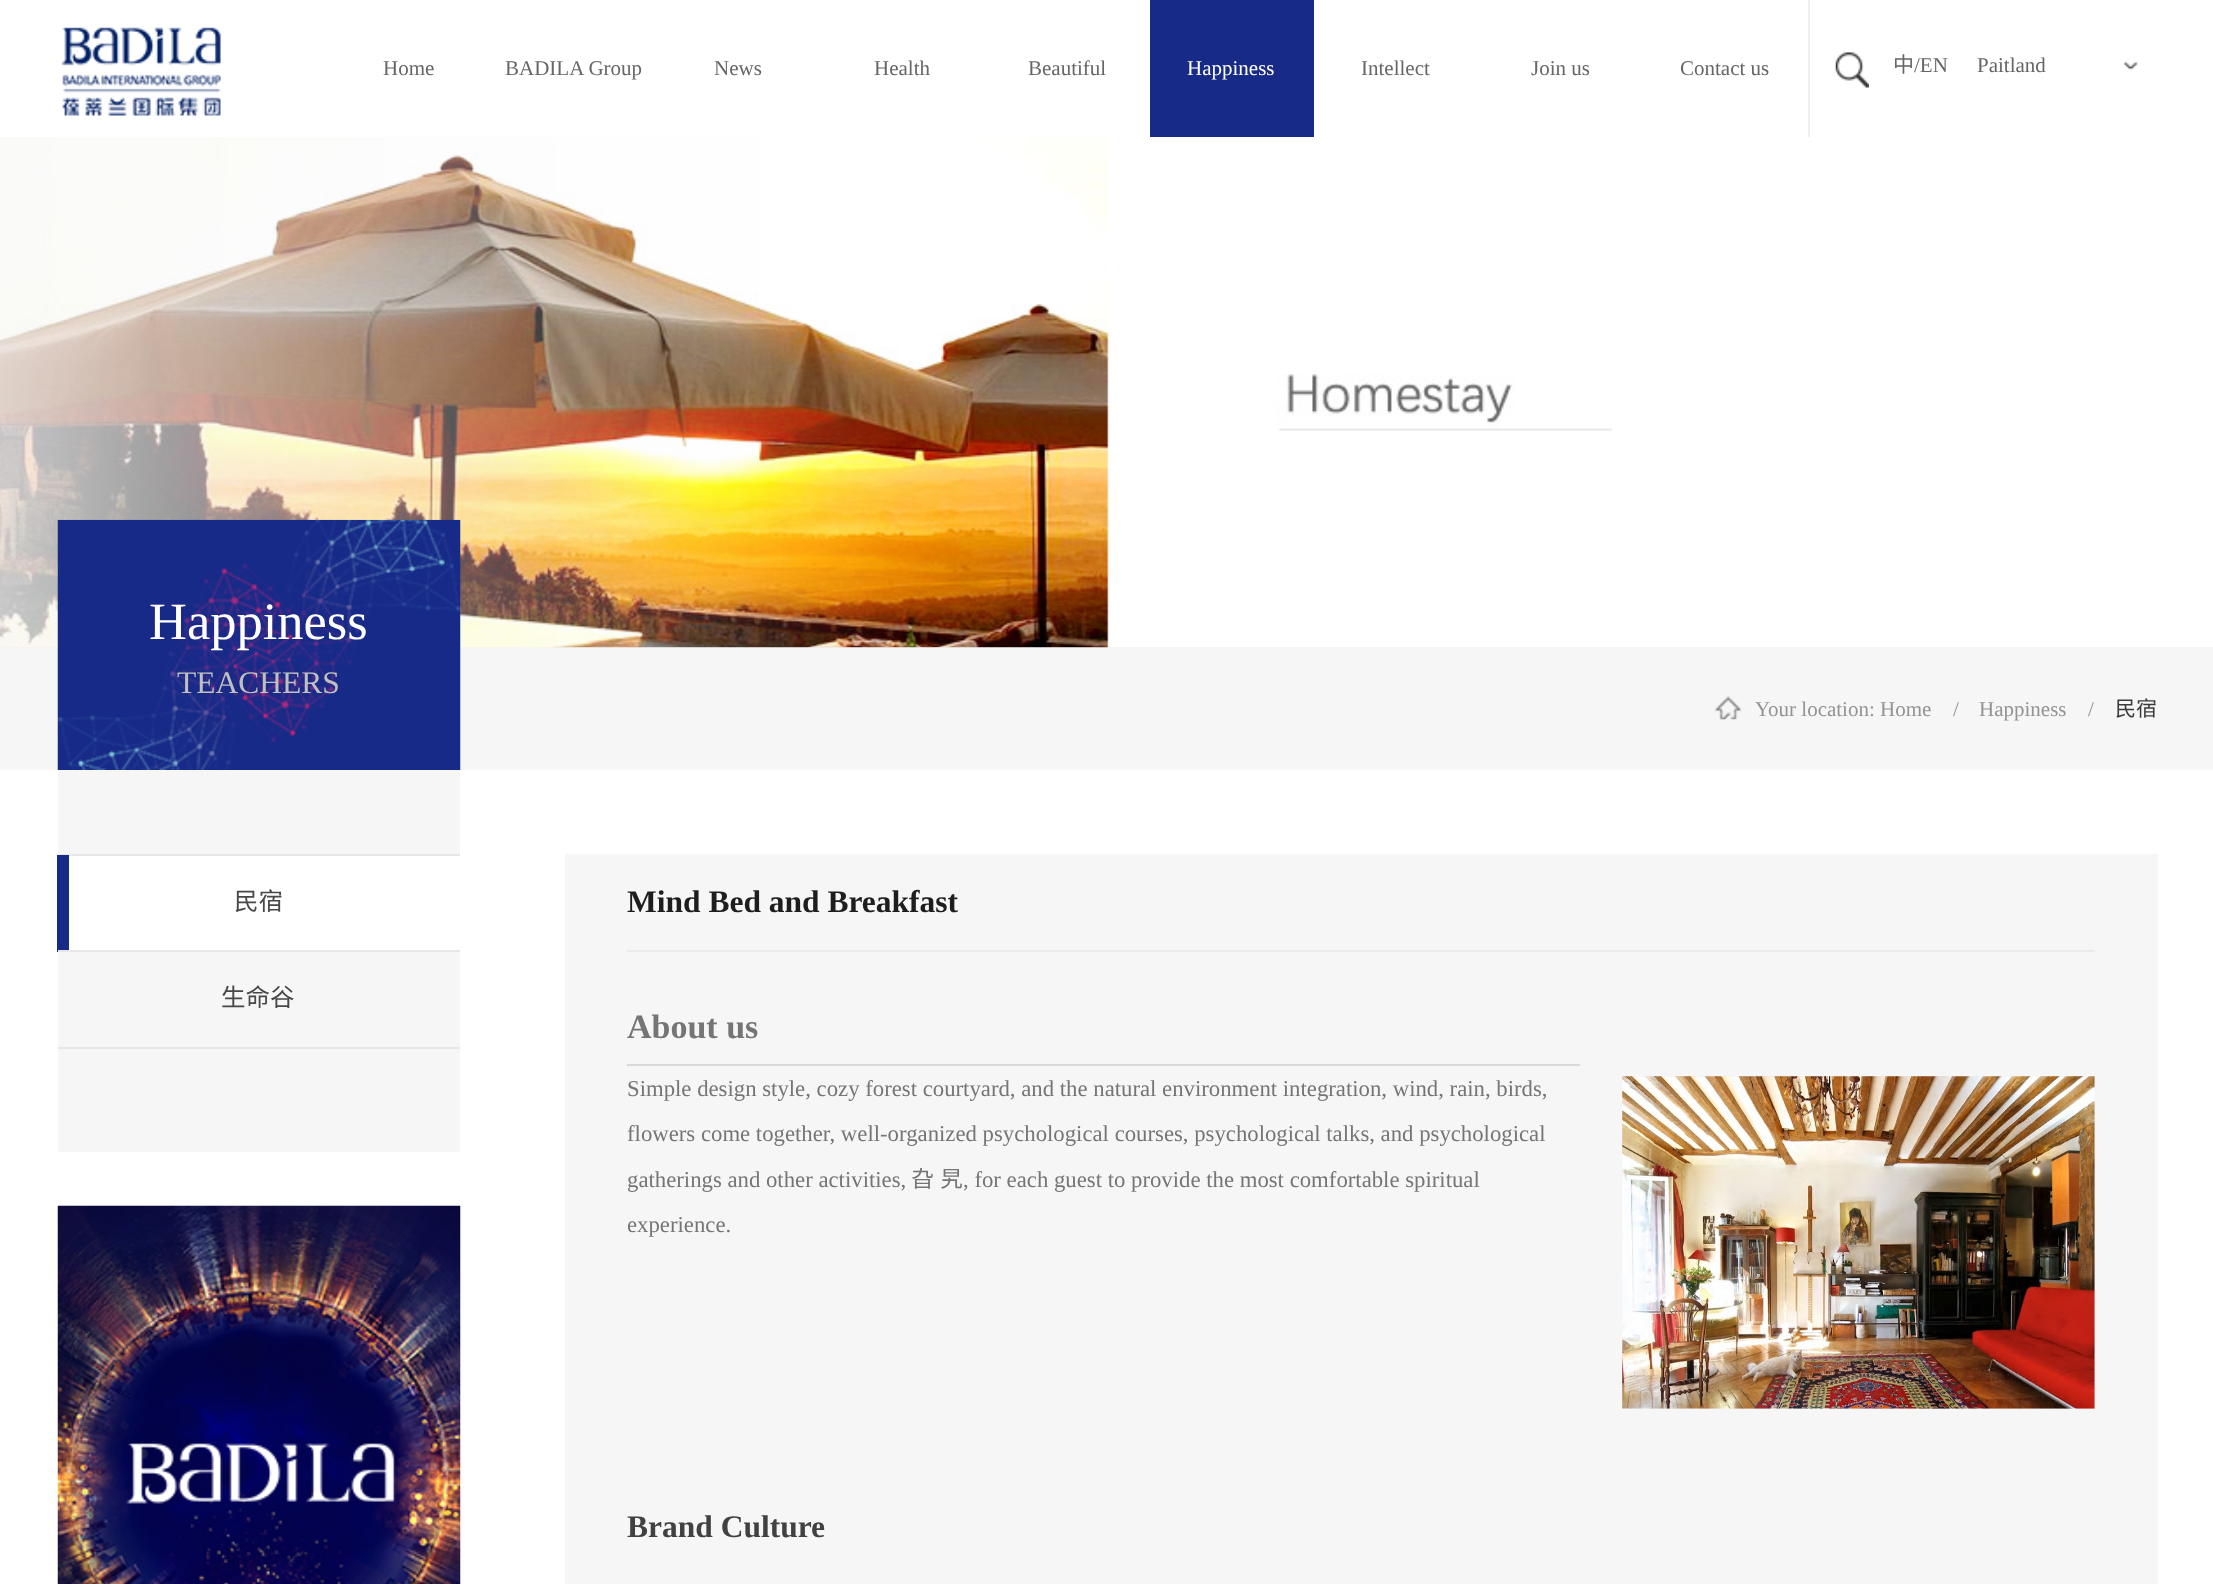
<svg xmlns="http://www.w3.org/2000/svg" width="2213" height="1584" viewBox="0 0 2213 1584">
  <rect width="100%" height="100%" fill="#ffffff"/>
  <image x="61" y="27" width="160" height="89" href="img1.png"/>
  <text x="383" y="75" font-family="Liberation Serif" font-size="21" fill="#666666">Home</text>
  <text x="505" y="75" font-family="Liberation Serif" font-size="21" fill="#666666">BADILA Group</text>
  <text x="714" y="75" font-family="Liberation Serif" font-size="21" fill="#666666">News</text>
  <text x="874" y="75" font-family="Liberation Serif" font-size="21" fill="#666666">Health</text>
  <text x="1028" y="75" font-family="Liberation Serif" font-size="21" fill="#666666">Beautiful</text>
  <rect x="1150" y="0" width="164" height="137" fill="#172a88"/>
  <text x="1187" y="75" font-family="Liberation Serif" font-size="21" fill="#ffffff">Happiness</text>
  <text x="1361" y="75" font-family="Liberation Serif" font-size="21" fill="#666666">Intellect</text>
  <text x="1531" y="75" font-family="Liberation Serif" font-size="21" fill="#666666">Join us</text>
  <text x="1680" y="75" font-family="Liberation Serif" font-size="21" fill="#666666">Contact us</text>
  <rect x="1808" y="0" width="2" height="137" fill="#eeeeee"/>
  <image x="1835" y="52" width="34" height="36" href="img2.png"/>
  <text x="1893" y="72" font-family="Noto Sans CJK SC" font-size="21" fill="#666666">中</text>
  <text x="1914" y="72" font-family="Liberation Serif" font-size="21" fill="#666666">/EN</text>
  <text x="1977" y="72" font-family="Liberation Serif" font-size="21" fill="#666666">Paitland</text>
  <image x="2124" y="61" width="14" height="9" href="img3.png"/>
  <image x="0" y="137" width="1612" height="511" href="img4.png"/>
  <rect x="0" y="647" width="2213" height="123" fill="#efefef" fill-opacity="0.57"/>
  <image x="57" y="519" width="404" height="251" href="img5.png"/>
  <text x="149" y="639" font-family="Liberation Serif" font-size="52.5" fill="#ffffff">Happiness</text>
  <text x="177" y="693" font-family="Liberation Serif" font-size="31.5" fill="#c0c0c0">TEACHERS</text>
  <rect x="58" y="770" width="402" height="382" fill="#f6f6f6"/>
  <rect x="58" y="854" width="402" height="2" fill="#e7e7e7"/>
  <rect x="69" y="856" width="391" height="94" fill="#ffffff"/>
  <rect x="57" y="855" width="12" height="97" fill="#172a88"/>
  <rect x="58" y="950" width="402" height="2" fill="#e7e7e7"/>
  <text x="234" y="910" font-family="Noto Sans CJK SC" font-size="24.5" fill="#484848">民宿</text>
  <rect x="58" y="1047" width="402" height="2" fill="#e7e7e7"/>
  <text x="221" y="1006" font-family="Noto Sans CJK SC" font-size="24.5" fill="#484848">生命谷</text>
  <image x="57" y="1205" width="404" height="379" href="img6.png"/>
  <image x="1715" y="696" width="27" height="24" href="img7.png"/>
  <text x="1755" y="716" font-family="Liberation Serif" font-size="21" fill="#939393">Your location: Home</text>
  <text x="1953" y="716" font-family="Liberation Serif" font-size="21" fill="#939393">/</text>
  <text x="1979" y="716" font-family="Liberation Serif" font-size="21" fill="#939393">Happiness</text>
  <text x="2088" y="716" font-family="Liberation Serif" font-size="21" fill="#939393">/</text>
  <text x="2115" y="716" font-family="Noto Sans CJK SC" font-size="21" fill="#3b3b3b">民宿</text>
  <rect x="565" y="854" width="1593" height="730" fill="#f6f6f6"/>
  <rect x="627" y="950" width="1468" height="2" fill="#eaeaea"/>
  <text x="627" y="912" font-family="Liberation Serif" font-size="31.5" font-weight="bold" fill="#1e1e1e">Mind Bed and Breakfast</text>
  <rect x="627" y="1064" width="953" height="2" fill="#d9d9d9"/>
  <text x="627" y="1038" font-family="Liberation Serif" font-size="34" font-weight="bold" fill="#757575">About us</text>
  <text x="627" y="1096" font-family="Liberation Serif" font-size="22.75" fill="#757575">Simple design style, cozy forest courtyard, and the natural environment integration, wind, rain, birds,</text>
  <text x="627" y="1141" font-family="Liberation Serif" font-size="22.75" fill="#757575">flowers come together, well-organized psychological courses, psychological talks, and psychological</text>
  <text x="627" y="1187" font-family="Liberation Serif" font-size="22.75" fill="#757575">gatherings and other activities,</text>
  <text x="911" y="1187" font-family="Noto Sans CJK SC" font-size="22.75" fill="#757575">旮</text>
  <text x="940" y="1187" font-family="Noto Sans CJK SC" font-size="22.75" fill="#757575">旯</text>
  <text x="963" y="1187" font-family="Liberation Serif" font-size="22.75" fill="#757575">, for each guest to provide the most comfortable spiritual</text>
  <text x="627" y="1232" font-family="Liberation Serif" font-size="22.75" fill="#757575">experience.</text>
  <image x="1622" y="1076" width="473" height="333" href="img8.png"/>
  <text x="627" y="1537" font-family="Liberation Serif" font-size="31.5" font-weight="bold" fill="#414141">Brand Culture</text>
</svg>
